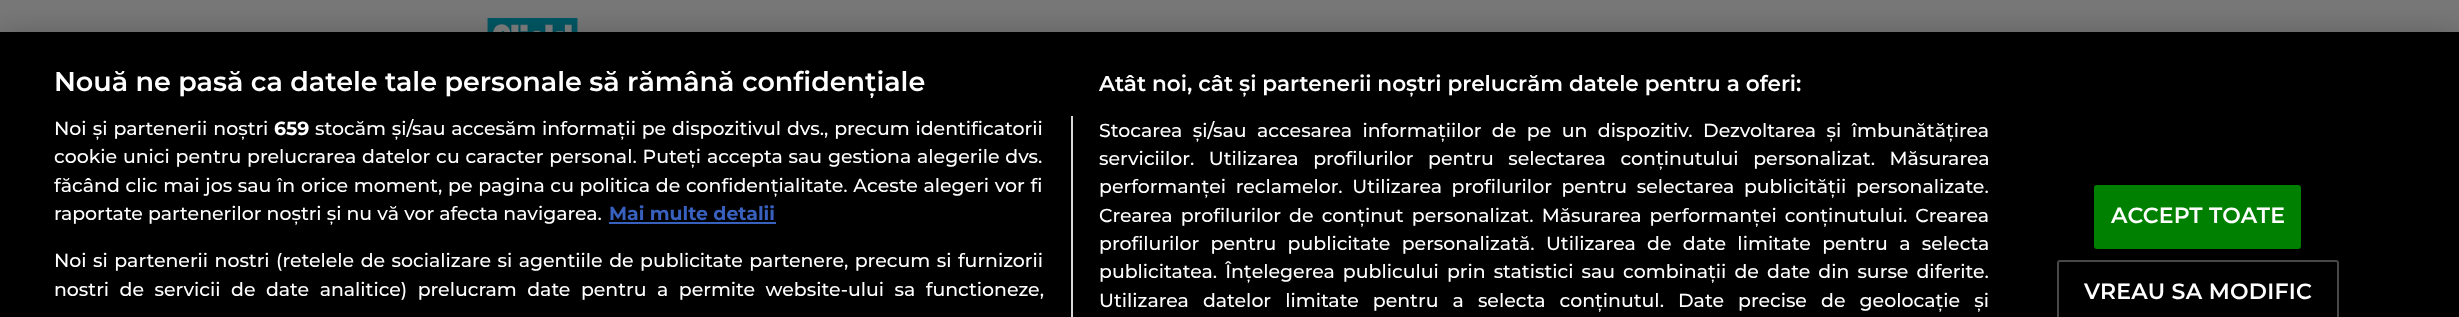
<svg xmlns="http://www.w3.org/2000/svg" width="2459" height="317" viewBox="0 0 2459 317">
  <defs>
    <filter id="blur1" x="-50%" y="-200%" width="200%" height="500%"><feGaussianBlur stdDeviation="13.5"/></filter>
  </defs>
  <rect width="100%" height="100%" fill="#777777"/>
  <image x="487" y="18" width="91" height="14" href="img1.png"/>
  <rect x="0" y="32" width="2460" height="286" fill="#000000" fill-opacity="0.2" filter="url(#blur1)"/>
  <rect x="0" y="32" width="2459" height="285" fill="#000000"/>
  <text x="54" y="91" font-family="Montserrat" font-size="27" font-weight="600" fill="#ffffff">Nouă ne pasă ca datele tale personale să rămână confidențiale</text>
  <text x="1099" y="91" font-family="Montserrat" font-size="21.6" font-weight="600" fill="#ffffff">Atât noi, cât și partenerii noștri prelucrăm datele pentru a oferi:</text>
  <text x="1099" y="137" word-spacing="5.4" font-family="Montserrat" font-size="18.9" font-weight="500" fill="#ffffff">Stocarea și/sau accesarea informațiilor de pe un dispozitiv. Dezvoltarea și îmbunătățirea</text>
  <text x="1099" y="165" word-spacing="9.5" font-family="Montserrat" font-size="18.9" font-weight="500" fill="#ffffff">serviciilor. Utilizarea profilurilor pentru selectarea conținutului personalizat. Măsurarea</text>
  <text x="1099" y="193" word-spacing="4.5" font-family="Montserrat" font-size="18.9" font-weight="500" fill="#ffffff">performanței reclamelor. Utilizarea profilurilor pentru selectarea publicității personalizate.</text>
  <text x="1099" y="222" word-spacing="3" font-family="Montserrat" font-size="18.9" font-weight="500" fill="#ffffff">Crearea profilurilor de conținut personalizat. Măsurarea performanței conținutului. Crearea</text>
  <text x="1099" y="250" word-spacing="6.25" font-family="Montserrat" font-size="18.9" font-weight="500" fill="#ffffff">profilurilor pentru publicitate personalizată. Utilizarea de date limitate pentru a selecta</text>
  <text x="1099" y="278" word-spacing="3" font-family="Montserrat" font-size="18.9" font-weight="500" fill="#ffffff">publicitatea. Înțelegerea publicului prin statistici sau combinații de date din surse diferite.</text>
  <text x="1099" y="307" word-spacing="9" font-family="Montserrat" font-size="18.9" font-weight="500" fill="#ffffff">Utilizarea datelor limitate pentru a selecta conținutul. Date precise de geolocație și</text>
  <rect x="1071" y="116" width="2" height="201" fill="#d8d8d8"/>
  <text x="54" y="135" word-spacing="1" font-family="Montserrat" font-size="18.9" font-weight="500" fill="#ffffff">Noi și partenerii noștri</text>
  <text x="274" y="135" font-family="Montserrat" font-size="18.9" font-weight="bold" fill="#ffffff">659</text>
  <text x="315" y="135" word-spacing="0.75" font-family="Montserrat" font-size="18.9" font-weight="500" fill="#ffffff">stocăm și/sau accesăm informații pe dispozitivul dvs., precum identificatorii</text>
  <text x="54" y="163" word-spacing="0.75" font-family="Montserrat" font-size="18.9" font-weight="500" fill="#ffffff">cookie unici pentru prelucrarea datelor cu caracter personal. Puteți accepta sau gestiona alegerile dvs.</text>
  <text x="54" y="192" word-spacing="0.6" font-family="Montserrat" font-size="18.9" font-weight="500" fill="#ffffff">făcând clic mai jos sau în orice moment, pe pagina cu politica de confidențialitate. Aceste alegeri vor fi</text>
  <text x="54" y="220" font-family="Montserrat" font-size="18.9" font-weight="500" fill="#ffffff">raportate partenerilor noștri și nu vă vor afecta navigarea.</text>
  <text x="609" y="220" font-family="Montserrat" font-size="18.9" font-weight="bold" fill="#3860be">Mai multe detalii</text>
  <rect x="609" y="222" width="167" height="2" fill="#3860be"/>
  <text x="54" y="267" word-spacing="1.4" font-family="Montserrat" font-size="18.9" font-weight="500" fill="#ffffff">Noi si partenerii nostri (retelele de socializare si agentiile de publicitate partenere, precum si furnizorii</text>
  <text x="54" y="296" word-spacing="5.4" font-family="Montserrat" font-size="18.9" font-weight="500" fill="#ffffff">nostri de servicii de date analitice) prelucram date pentru a permite website-ului sa functioneze,</text>
  <rect x="2095" y="186" width="205" height="62" rx="2" fill="#008000" stroke="#008000" stroke-width="2"/>
  <text x="2111" y="223" font-family="Montserrat" font-size="22" font-weight="600" letter-spacing="0.25" fill="#ffffff">ACCEPT TOATE</text>
  <rect x="2058" y="261" width="280" height="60" rx="2" fill="none" stroke="#474747" stroke-width="2"/>
  <text x="2084" y="299" font-family="Montserrat" font-size="22" font-weight="600" letter-spacing="0.25" fill="#ffffff">VREAU SA MODIFIC</text>
</svg>
